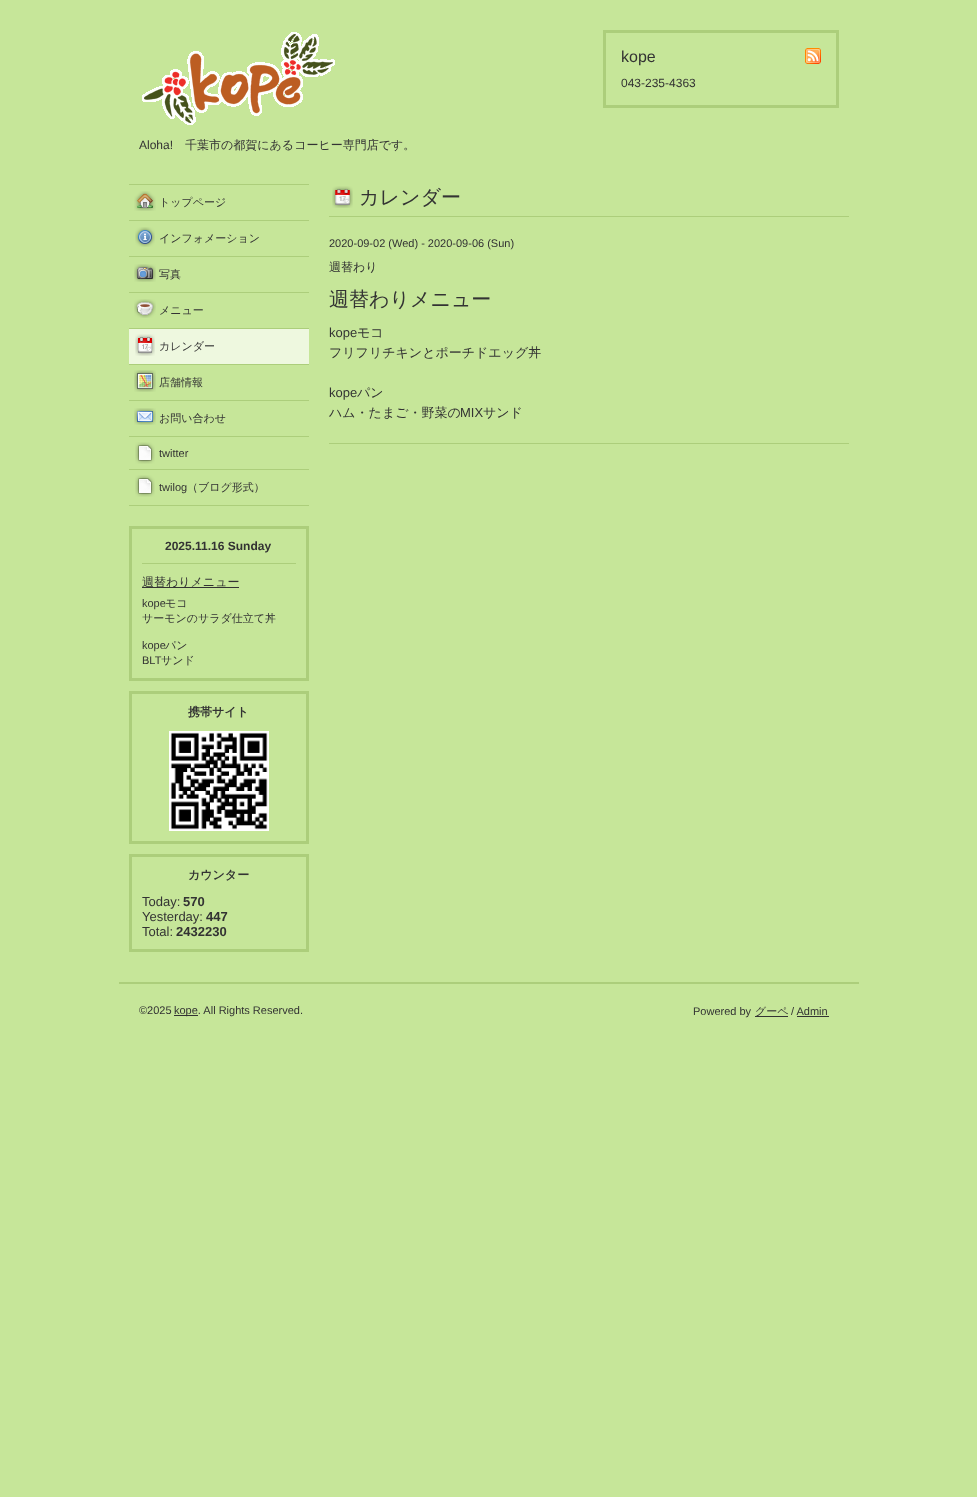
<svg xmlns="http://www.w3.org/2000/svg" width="977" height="1497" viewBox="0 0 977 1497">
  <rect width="100%" height="100%" fill="#c6e699"/>
  <rect x="604.5" y="31.5" width="233" height="75" fill="none" stroke="#acce7b" stroke-width="3"/>
  <text x="621" y="62" font-family="Liberation Sans" font-size="16" fill="#333333">kope</text>
  <image x="805" y="48" width="16" height="16" href="img1.png"/>
  <text x="621" y="87" font-family="Liberation Sans" font-size="12" fill="#333333">043-235-4363</text>
  <image x="142" y="32" width="193" height="93" href="img2.png"/>
  <text x="139" y="149" font-family="Liberation Sans" font-size="12" fill="#333333">Aloha!</text>
  <text x="185" y="149" font-family="WenQuanYi Zen Hei" font-size="12" font-weight="500" fill="#333333">千葉市の都賀にあるコーヒー専門店です。</text>
  <rect x="129" y="184" width="180" height="1" fill="#acce7b"/>
  <rect x="129" y="220" width="180" height="1" fill="#acce7b"/>
  <image x="134" y="191" width="22" height="20" href="img3.png"/>
  <text x="159" y="206" font-family="WenQuanYi Zen Hei" font-size="11" font-weight="500" fill="#333333">トップページ</text>
  <rect x="129" y="256" width="180" height="1" fill="#acce7b"/>
  <image x="135" y="227" width="20" height="20" href="img4.png"/>
  <text x="159" y="242" font-family="WenQuanYi Zen Hei" font-size="11" font-weight="500" fill="#333333">インフォメーション</text>
  <rect x="129" y="292" width="180" height="1" fill="#acce7b"/>
  <image x="134" y="264" width="22" height="18" href="img5.png"/>
  <text x="159" y="278" font-family="WenQuanYi Zen Hei" font-size="11" font-weight="500" fill="#333333">写真</text>
  <rect x="129" y="328" width="180" height="1" fill="#acce7b"/>
  <image x="134" y="299" width="22" height="19" href="img6.png"/>
  <text x="159" y="314" font-family="WenQuanYi Zen Hei" font-size="11" font-weight="500" fill="#333333">メニュー</text>
  <rect x="129" y="364" width="180" height="1" fill="#acce7b"/>
  <rect x="129" y="329" width="180" height="35" fill="#eef8df"/>
  <image x="135" y="334" width="20" height="22" href="img7.png"/>
  <text x="159" y="350" font-family="WenQuanYi Zen Hei" font-size="11" font-weight="500" fill="#333333">カレンダー</text>
  <rect x="129" y="400" width="180" height="1" fill="#acce7b"/>
  <image x="134" y="370" width="22" height="22" href="img8.png"/>
  <text x="159" y="386" font-family="WenQuanYi Zen Hei" font-size="11" font-weight="500" fill="#333333">店舗情報</text>
  <rect x="129" y="436" width="180" height="1" fill="#acce7b"/>
  <image x="134" y="408" width="22" height="17" href="img9.png"/>
  <text x="159" y="422" font-family="WenQuanYi Zen Hei" font-size="11" font-weight="500" fill="#333333">お問い合わせ</text>
  <rect x="129" y="469" width="180" height="1" fill="#acce7b"/>
  <image x="135" y="442" width="20" height="22" href="img10.png"/>
  <text x="159" y="457" font-family="Liberation Sans" font-size="11" fill="#333333">twitter</text>
  <rect x="129" y="505" width="180" height="1" fill="#acce7b"/>
  <image x="135" y="475" width="20" height="22" href="img10.png"/>
  <text x="159" y="491" font-family="Liberation Sans" font-size="11" fill="#333333">twilog</text>
  <text x="187" y="491" font-family="WenQuanYi Zen Hei" font-size="11" font-weight="500" fill="#333333">（ブログ形式）</text>
  <image x="332" y="186" width="21" height="22" href="img11.png"/>
  <rect x="329" y="216" width="520" height="1" fill="#acce7b"/>
  <text x="359" y="204" font-family="WenQuanYi Zen Hei" font-size="20" font-weight="500" fill="#333333">カレンダー</text>
  <rect x="329" y="443" width="520" height="1" fill="#acce7b"/>
  <text x="329" y="247" font-family="Liberation Sans" font-size="11" fill="#333333">2020-09-02 (Wed) - 2020-09-06 (Sun)</text>
  <text x="329" y="271" font-family="WenQuanYi Zen Hei" font-size="12" font-weight="500" fill="#333333">週替わり</text>
  <text x="329" y="306" font-family="WenQuanYi Zen Hei" font-size="20" font-weight="500" fill="#333333">週替わりメニュー</text>
  <text x="329" y="337" font-family="Liberation Sans" font-size="13" fill="#333333">kope</text>
  <text x="357" y="337" font-family="WenQuanYi Zen Hei" font-size="13" font-weight="500" fill="#333333">モコ</text>
  <text x="329" y="357" font-family="WenQuanYi Zen Hei" font-size="13" font-weight="500" fill="#333333">フリフリチキンとポーチドエッグ丼</text>
  <text x="329" y="397" font-family="Liberation Sans" font-size="13" fill="#333333">kope</text>
  <text x="357" y="397" font-family="WenQuanYi Zen Hei" font-size="13" font-weight="500" fill="#333333">パン</text>
  <text x="329" y="417" font-family="WenQuanYi Zen Hei" font-size="13" font-weight="500" fill="#333333">ハム・たまご・野菜の</text>
  <text x="460" y="417" font-family="Liberation Sans" font-size="13" fill="#333333">MIX</text>
  <text x="483" y="417" font-family="WenQuanYi Zen Hei" font-size="13" font-weight="500" fill="#333333">サンド</text>
  <rect x="130.5" y="527.5" width="177" height="152" fill="none" stroke="#acce7b" stroke-width="3"/>
  <text x="165" y="550" font-family="Liberation Sans" font-size="12" font-weight="bold" fill="#333333">2025.11.16 Sunday</text>
  <rect x="142" y="563" width="154" height="1" fill="#acce7b"/>
  <rect x="142" y="587" width="97" height="1" fill="#333333"/>
  <text x="142" y="586" font-family="WenQuanYi Zen Hei" font-size="12" font-weight="500" fill="#333333">週替わりメニュー</text>
  <text x="142" y="607" font-family="Liberation Sans" font-size="11" fill="#333333">kope</text>
  <text x="165" y="607" font-family="WenQuanYi Zen Hei" font-size="11" font-weight="500" fill="#333333">モコ</text>
  <text x="142" y="622" font-family="WenQuanYi Zen Hei" font-size="11" font-weight="500" fill="#333333">サーモンのサラダ仕立て丼</text>
  <text x="142" y="649" font-family="Liberation Sans" font-size="11" fill="#333333">kope</text>
  <text x="165" y="649" font-family="WenQuanYi Zen Hei" font-size="11" font-weight="500" fill="#333333">パン</text>
  <text x="142" y="664" font-family="Liberation Sans" font-size="11" fill="#333333">BLT</text>
  <text x="161" y="664" font-family="WenQuanYi Zen Hei" font-size="11" font-weight="500" fill="#333333">サンド</text>
  <rect x="130.5" y="692.5" width="177" height="150" fill="none" stroke="#acce7b" stroke-width="3"/>
  <text x="188" y="716" font-family="WenQuanYi Zen Hei" font-size="12" font-weight="bold" fill="#333333">携帯サイト</text>
  <image x="169" y="731" width="100" height="100" href="img12.png"/>
  <rect x="130.5" y="855.5" width="177" height="95" fill="none" stroke="#acce7b" stroke-width="3"/>
  <text x="188" y="879" font-family="WenQuanYi Zen Hei" font-size="12" font-weight="bold" fill="#333333">カウンター</text>
  <text x="142" y="906" font-family="Liberation Sans" font-size="13" fill="#333333">Today:</text>
  <text x="183" y="906" font-family="Liberation Sans" font-size="13" font-weight="bold" fill="#333333">570</text>
  <text x="142" y="921" font-family="Liberation Sans" font-size="13" fill="#333333">Yesterday:</text>
  <text x="206" y="921" font-family="Liberation Sans" font-size="13" font-weight="bold" fill="#333333">447</text>
  <text x="142" y="936" font-family="Liberation Sans" font-size="13" fill="#333333">Total:</text>
  <text x="176" y="936" font-family="Liberation Sans" font-size="13" font-weight="bold" fill="#333333">2432230</text>
  <rect x="119" y="982" width="740" height="2" fill="#acce7b"/>
  <text x="139" y="1014" font-family="Liberation Sans" font-size="11" fill="#333333">©2025</text>
  <rect x="174" y="1015" width="24" height="1" fill="#333333"/>
  <text x="174" y="1014" font-family="Liberation Sans" font-size="11" fill="#333333">kope. All Rights Reserved.</text>
  <text x="693" y="1015" font-family="Liberation Sans" font-size="11" fill="#333333">Powered by</text>
  <rect x="755" y="1016" width="33" height="1" fill="#333333"/>
  <text x="755" y="1015" font-family="WenQuanYi Zen Hei" font-size="11" font-weight="500" fill="#333333">グーペ</text>
  <text x="791" y="1015" font-family="Liberation Sans" font-size="11" fill="#333333">/ Admin</text>
  <rect x="797" y="1016" width="32" height="1" fill="#333333"/>
</svg>
